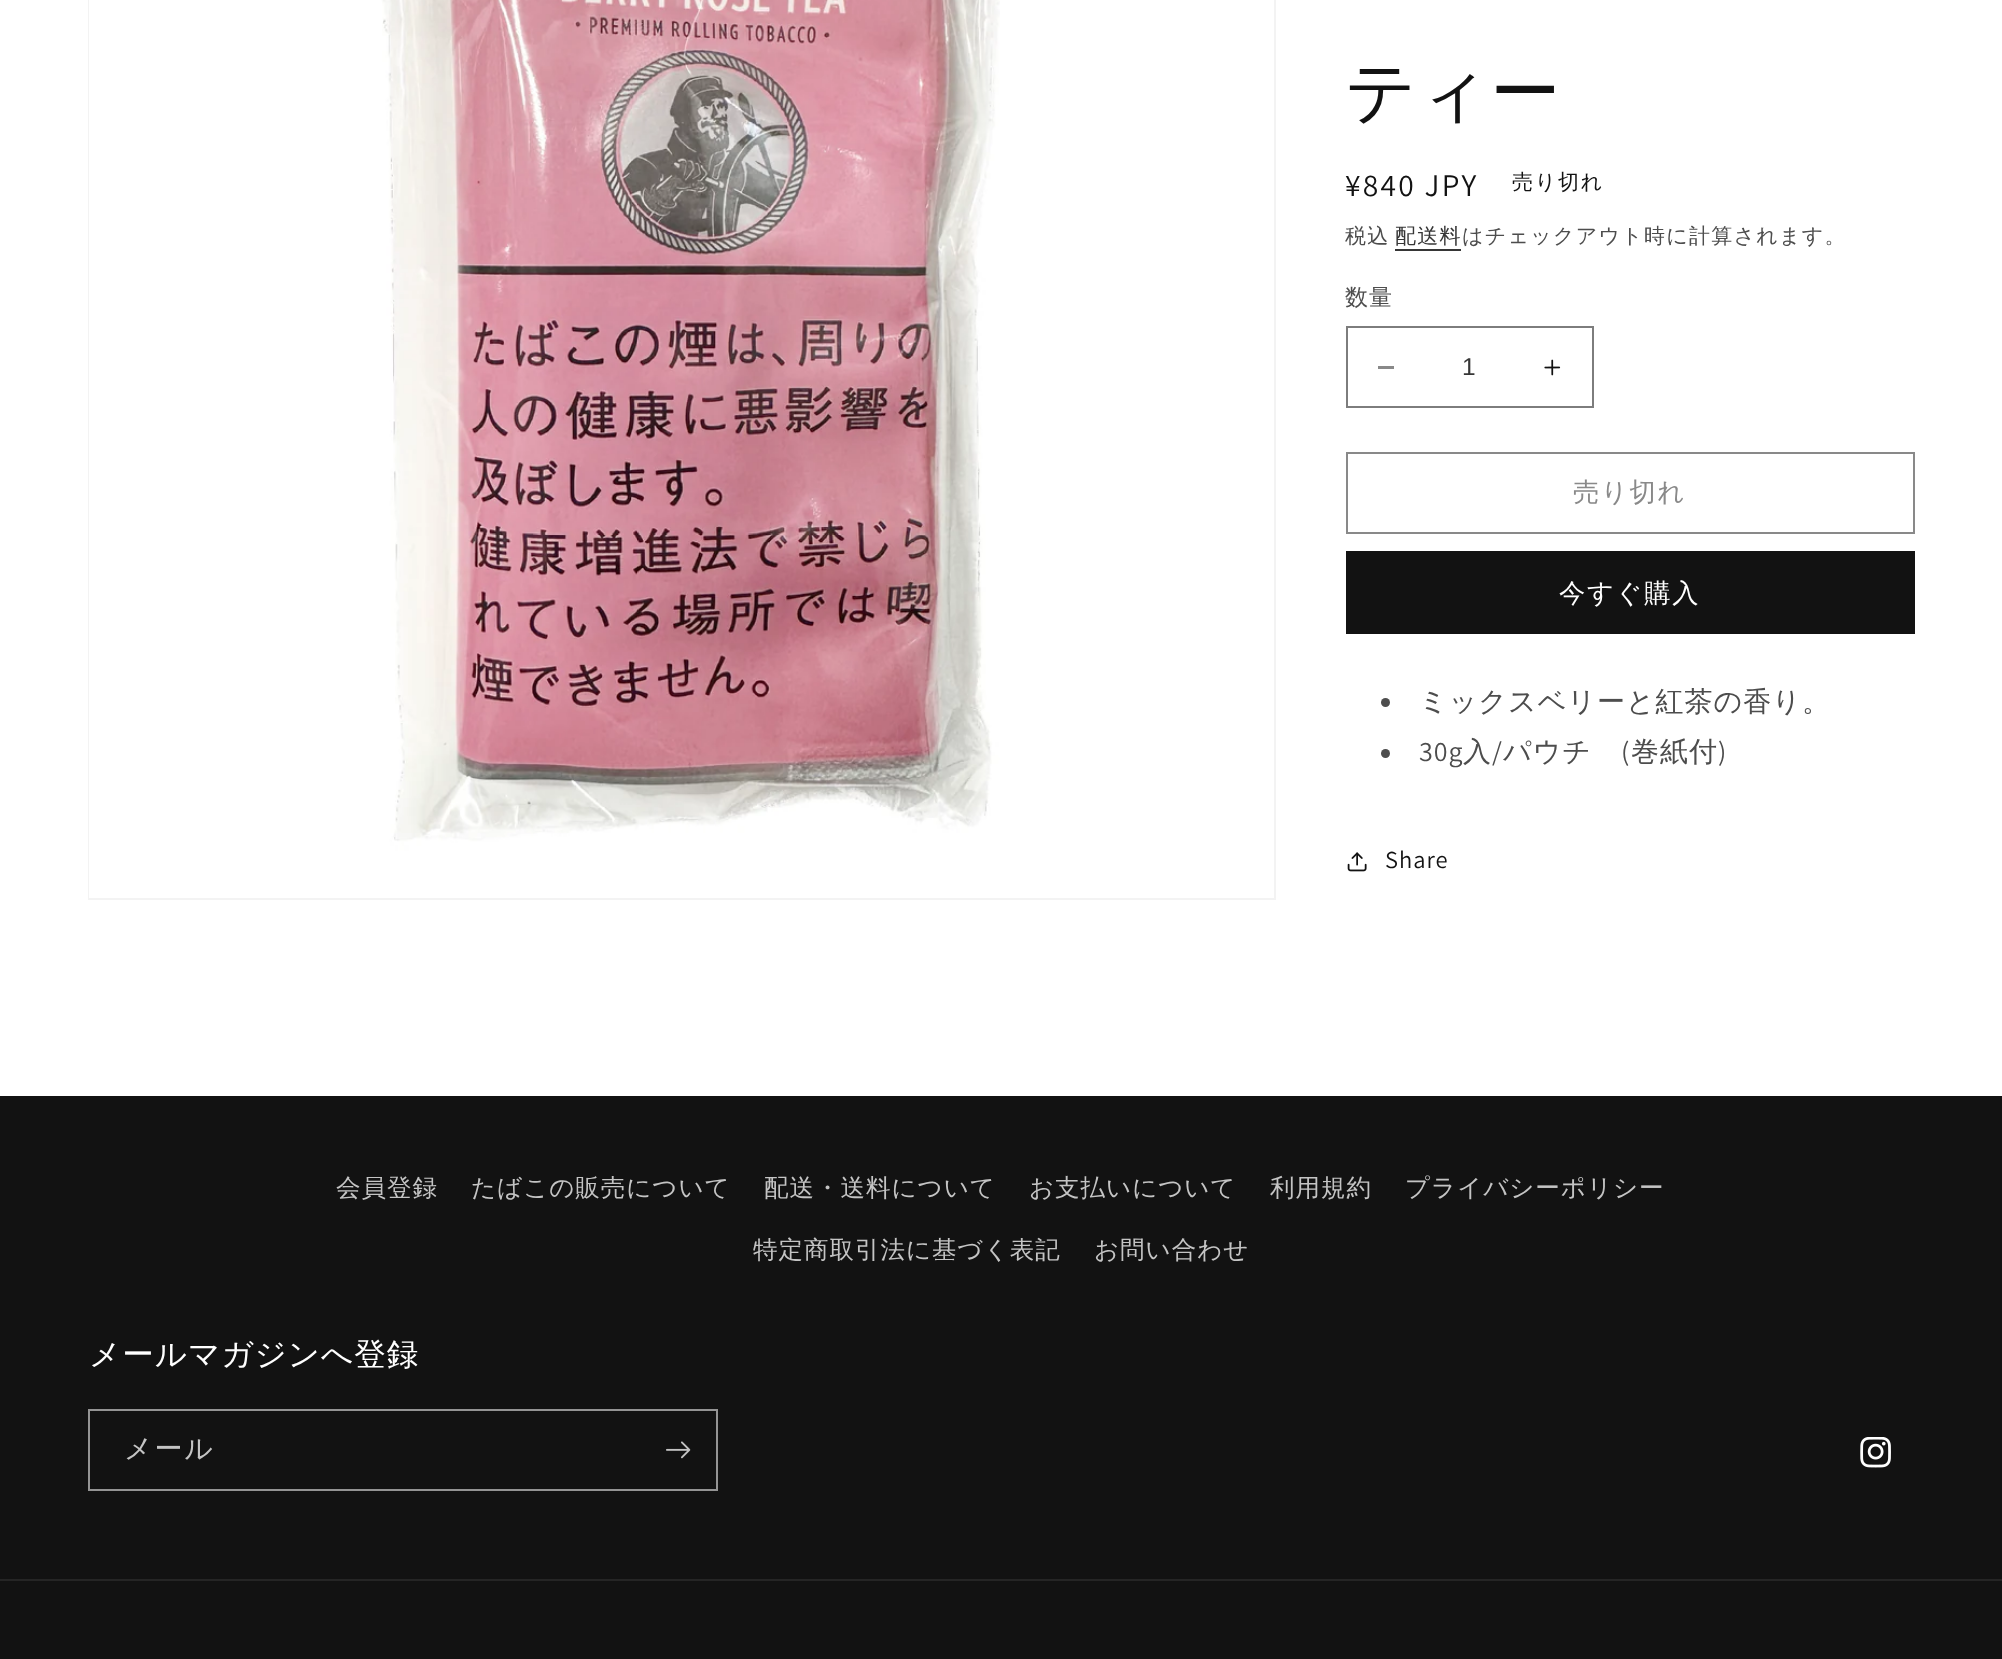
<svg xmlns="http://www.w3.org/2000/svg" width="2002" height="1659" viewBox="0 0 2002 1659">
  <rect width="100%" height="100%" fill="#ffffff"/>
  <rect x="89" y="-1" width="1186" height="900" fill="none" stroke="#f3f3f3" stroke-width="2"/>
  <image x="89" y="0" width="911" height="898" href="img1.png"/>
  <text x="1345" y="116" font-family="WenQuanYi Zen Hei" font-size="70" font-weight="500" letter-spacing="1" fill="#121212">ティー</text>
  <text x="1345" y="196" font-family="Assistant" font-size="31.5" letter-spacing="2.25" fill="#121212">¥840 JPY</text>
  <text x="1512" y="189" font-family="WenQuanYi Zen Hei" font-size="21" font-weight="500" letter-spacing="1.75" fill="#121212">売り切れ</text>
  <text x="1345" y="243" font-family="WenQuanYi Zen Hei" font-size="21" font-weight="500" letter-spacing="1.25" fill="#4d4d4d">税込</text>
  <text x="1395" y="243" font-family="WenQuanYi Zen Hei" font-size="21" font-weight="500" letter-spacing="1.25" fill="#363636">配送料</text>
  <rect x="1395" y="249" width="66" height="2" fill="#363636"/>
  <text x="1462" y="243" font-family="WenQuanYi Zen Hei" font-size="21" font-weight="500" letter-spacing="1.25" fill="#4d4d4d">はチェックアウト時に計算されます。</text>
  <text x="1345" y="305" font-family="WenQuanYi Zen Hei" font-size="23" font-weight="500" letter-spacing="1" fill="#4d4d4d">数量</text>
  <rect x="1378" y="366" width="16" height="3" fill="#898989"/>
  <image x="1544" y="359" width="17" height="17" href="img2.png"/>
  <rect x="1347" y="327" width="246" height="80" fill="none" stroke="#7d7d7d" stroke-width="2"/>
  <text x="1462" y="375" font-family="Liberation Sans" font-size="24.5" fill="#363636">1</text>
  <rect x="1347" y="453" width="567" height="80" fill="none" stroke="#898989" stroke-width="2"/>
  <text x="1573" y="501" font-family="WenQuanYi Zen Hei" font-size="26.25" font-weight="500" letter-spacing="1.75" fill="#898989">売り切れ</text>
  <rect x="1346" y="551" width="569" height="83" fill="#121212"/>
  <text x="1559" y="602" font-family="WenQuanYi Zen Hei" font-size="26.25" font-weight="500" letter-spacing="1.75" fill="#ffffff">今すぐ購入</text>
  <circle cx="1385.5" cy="702.5" r="4.5" fill="#4d4d4d"/>
  <text x="1419" y="711" font-family="WenQuanYi Zen Hei" font-size="28" font-weight="500" letter-spacing="1" fill="#4d4d4d">ミックスベリーと紅茶の香り。</text>
  <circle cx="1385.5" cy="753.5" r="4.5" fill="#4d4d4d"/>
  <text x="1419" y="761" font-family="Assistant" font-size="28" letter-spacing="1" fill="#4d4d4d">30g</text>
  <text x="1463" y="761" font-family="WenQuanYi Zen Hei" font-size="28" font-weight="500" letter-spacing="1" fill="#4d4d4d">入</text>
  <text x="1492" y="761" font-family="Assistant" font-size="28" letter-spacing="1" fill="#4d4d4d">/</text>
  <text x="1503" y="761" font-family="WenQuanYi Zen Hei" font-size="28" font-weight="500" letter-spacing="1" fill="#4d4d4d">パウチ</text>
  <text x="1621" y="761" font-family="Assistant" font-size="28" letter-spacing="1" fill="#4d4d4d">(</text>
  <text x="1631" y="761" font-family="WenQuanYi Zen Hei" font-size="28" font-weight="500" letter-spacing="1" fill="#4d4d4d">巻紙付</text>
  <text x="1718" y="761" font-family="Assistant" font-size="28" letter-spacing="1" fill="#4d4d4d">)</text>
  <image x="1347" y="852" width="20" height="20" href="img3.png"/>
  <text x="1385" y="868" font-family="Assistant" font-size="24.5" letter-spacing="1" fill="#121212">Share</text>
  <rect x="0" y="1096" width="2002" height="563" fill="#121212"/>
  <text x="336" y="1196" font-family="WenQuanYi Zen Hei" font-size="24.5" font-weight="500" letter-spacing="1" fill="#c4c4c4">会員登録</text>
  <text x="471" y="1196" font-family="WenQuanYi Zen Hei" font-size="24.5" font-weight="500" letter-spacing="1" fill="#c4c4c4">たばこの販売について</text>
  <text x="764" y="1196" font-family="WenQuanYi Zen Hei" font-size="24.5" font-weight="500" letter-spacing="1" fill="#c4c4c4">配送・送料について</text>
  <text x="1029" y="1196" font-family="WenQuanYi Zen Hei" font-size="24.5" font-weight="500" letter-spacing="1" fill="#c4c4c4">お支払いについて</text>
  <text x="1270" y="1196" font-family="WenQuanYi Zen Hei" font-size="24.5" font-weight="500" letter-spacing="1" fill="#c4c4c4">利用規約</text>
  <text x="1405" y="1196" font-family="WenQuanYi Zen Hei" font-size="24.5" font-weight="500" letter-spacing="1" fill="#c4c4c4">プライバシーポリシー</text>
  <text x="753" y="1258" font-family="WenQuanYi Zen Hei" font-size="24.5" font-weight="500" letter-spacing="1" fill="#c4c4c4">特定商取引法に基づく表記</text>
  <text x="1094" y="1258" font-family="WenQuanYi Zen Hei" font-size="24.5" font-weight="500" letter-spacing="1" fill="#c4c4c4">お問い合わせ</text>
  <text x="89" y="1365" font-family="WenQuanYi Zen Hei" font-size="31.5" font-weight="500" letter-spacing="1" fill="#ffffff">メールマガジンへ登録</text>
  <rect x="89" y="1410" width="628" height="80" fill="none" stroke="#949494" stroke-width="2"/>
  <text x="124" y="1458" font-family="WenQuanYi Zen Hei" font-size="28" font-weight="500" letter-spacing="1.75" fill="#c4c4c4">メール</text>
  <image x="666" y="1441" width="25" height="18" href="img4.png"/>
  <image x="1860" y="1437" width="31" height="31" href="img5.png"/>
  <rect x="0" y="1579" width="2002" height="2" fill="#252525"/>
</svg>
